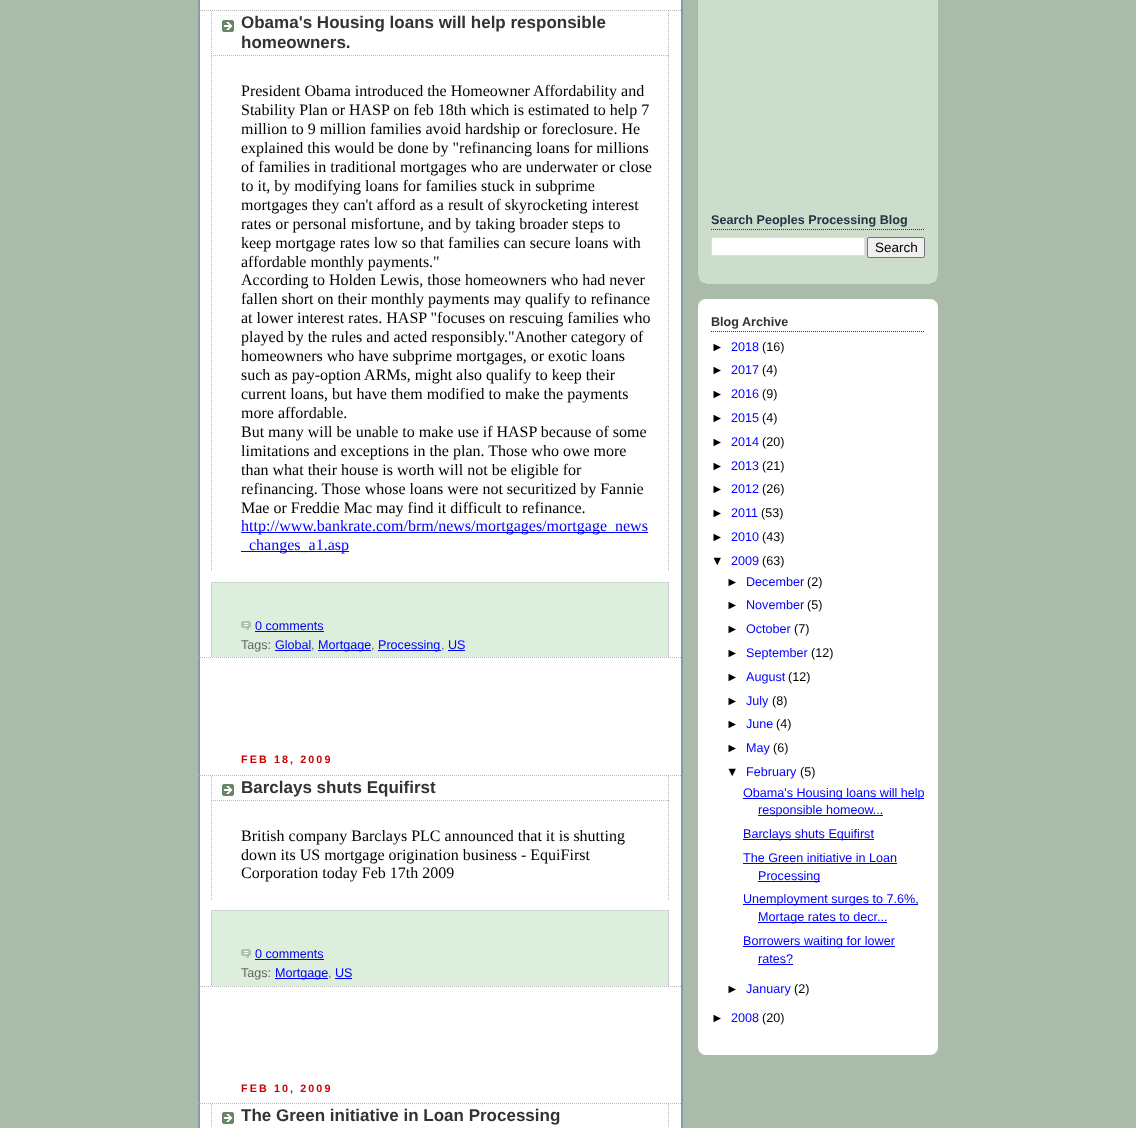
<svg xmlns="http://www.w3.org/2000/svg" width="1136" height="1128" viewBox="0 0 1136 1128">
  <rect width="100%" height="100%" fill="#aabbaa"/>
  <rect x="200" y="0" width="481" height="1128" fill="#ffffff"/>
  <image x="198" y="0" width="485" height="25" href="img1.png"/>
  <image x="198" y="25" width="485" height="1103" href="img2.png"/>
  <path d="M198 10.5H682" fill="none" stroke="#bbbbbb" stroke-dasharray="1 1"/>
  <path d="M198 657.5H682" fill="none" stroke="#bbbbbb" stroke-dasharray="1 1"/>
  <image x="222" y="20" width="12" height="12" href="img3.png"/>
  <path d="M668.5 11V56" fill="none" stroke="#bbbbbb" stroke-dasharray="1 1"/>
  <path d="M211 55.5H669" fill="none" stroke="#bbbbbb" stroke-dasharray="1 1"/>
  <path d="M211.5 11V56" fill="none" stroke="#bbbbbb" stroke-dasharray="1 1"/>
  <text x="241" y="28" font-family="Liberation Sans" font-size="17" font-weight="bold" fill="#333333">Obama's Housing loans will help responsible</text>
  <text x="241" y="48" font-family="Liberation Sans" font-size="17" font-weight="bold" fill="#333333">homeowners.</text>
  <path d="M668.5 56V572" fill="none" stroke="#bbbbbb" stroke-dasharray="1 1"/>
  <path d="M211.5 56V572" fill="none" stroke="#bbbbbb" stroke-dasharray="1 1"/>
  <text x="241" y="96" font-family="Liberation Serif" font-size="16" fill="#000000">President Obama introduced the Homeowner Affordability and</text>
  <text x="241" y="115" font-family="Liberation Serif" font-size="16" fill="#000000">Stability Plan or HASP on feb 18th which is estimated to help 7</text>
  <text x="241" y="134" font-family="Liberation Serif" font-size="16" fill="#000000">million to 9 million families avoid hardship or foreclosure. He</text>
  <text x="241" y="153" font-family="Liberation Serif" font-size="16" fill="#000000">explained this would be done by "refinancing loans for millions</text>
  <text x="241" y="172" font-family="Liberation Serif" font-size="16" fill="#000000">of families in traditional mortgages who are underwater or close</text>
  <text x="241" y="191" font-family="Liberation Serif" font-size="16" fill="#000000">to it, by modifying loans for families stuck in subprime</text>
  <text x="241" y="210" font-family="Liberation Serif" font-size="16" fill="#000000">mortgages they can't afford as a result of skyrocketing interest</text>
  <text x="241" y="229" font-family="Liberation Serif" font-size="16" fill="#000000">rates or personal misfortune, and by taking broader steps to</text>
  <text x="241" y="248" font-family="Liberation Serif" font-size="16" fill="#000000">keep mortgage rates low so that families can secure loans with</text>
  <text x="241" y="267" font-family="Liberation Serif" font-size="16" fill="#000000">affordable monthly payments."</text>
  <text x="241" y="285" font-family="Liberation Serif" font-size="16" fill="#000000">According to Holden Lewis, those homeowners who had never</text>
  <text x="241" y="304" font-family="Liberation Serif" font-size="16" fill="#000000">fallen short on their monthly payments may qualify to refinance</text>
  <text x="241" y="323" font-family="Liberation Serif" font-size="16" fill="#000000">at lower interest rates. HASP "focuses on rescuing families who</text>
  <text x="241" y="342" font-family="Liberation Serif" font-size="16" fill="#000000">played by the rules and acted responsibly."Another category of</text>
  <text x="241" y="361" font-family="Liberation Serif" font-size="16" fill="#000000">homeowners who have subprime mortgages, or exotic loans</text>
  <text x="241" y="380" font-family="Liberation Serif" font-size="16" fill="#000000">such as pay-option ARMs, might also qualify to keep their</text>
  <text x="241" y="399" font-family="Liberation Serif" font-size="16" fill="#000000">current loans, but have them modified to make the payments</text>
  <text x="241" y="418" font-family="Liberation Serif" font-size="16" fill="#000000">more affordable.</text>
  <text x="241" y="437" font-family="Liberation Serif" font-size="16" fill="#000000">But many will be unable to make use if HASP because of some</text>
  <text x="241" y="456" font-family="Liberation Serif" font-size="16" fill="#000000">limitations and exceptions in the plan. Those who owe more</text>
  <text x="241" y="475" font-family="Liberation Serif" font-size="16" fill="#000000">than what their house is worth will not be eligible for</text>
  <text x="241" y="494" font-family="Liberation Serif" font-size="16" fill="#000000">refinancing. Those whose loans were not securitized by Fannie</text>
  <text x="241" y="513" font-family="Liberation Serif" font-size="16" fill="#000000">Mae or Freddie Mac may find it difficult to refinance.</text>
  <rect x="241" y="532" width="407" height="1" fill="#0000ff"/>
  <text x="241" y="531" font-family="Liberation Serif" font-size="16" fill="#0000ff">http://www.bankrate.com/brm/news/mortgages/mortgage_news</text>
  <rect x="241" y="551" width="108" height="1" fill="#0000ff"/>
  <text x="249" y="550" font-family="Liberation Serif" font-size="16" fill="#0000ff">changes_a1.asp</text>
  <rect x="211" y="582" width="458" height="75" fill="#ddeedd"/>
  <path d="M211 582.5H669" fill="none" stroke="#bbbbbb" stroke-dasharray="1 1"/>
  <path d="M668.5 582V657" fill="none" stroke="#bbbbbb" stroke-dasharray="1 1"/>
  <path d="M211.5 582V657" fill="none" stroke="#bbbbbb" stroke-dasharray="1 1"/>
  <image x="241" y="621" width="10" height="9" href="img4.png"/>
  <text x="255" y="630" font-family="Liberation Sans" font-size="12.6" fill="#0000ff">0 comments</text>
  <rect x="255" y="631" width="69" height="1" fill="#0000ff"/>
  <text x="241" y="649" font-family="Liberation Sans" font-size="12.6" fill="#666666">Tags:</text>
  <text x="275" y="649" font-family="Liberation Sans" font-size="12.6" fill="#0000ff">Global</text>
  <text x="311" y="649" font-family="Liberation Sans" font-size="12.6" fill="#666666">,</text>
  <rect x="275" y="650" width="36" height="1" fill="#0000ff"/>
  <rect x="318" y="650" width="53" height="1" fill="#0000ff"/>
  <text x="318" y="649" font-family="Liberation Sans" font-size="12.6" fill="#0000ff">Mortgage</text>
  <text x="371" y="649" font-family="Liberation Sans" font-size="12.6" fill="#666666">,</text>
  <rect x="378" y="650" width="63" height="1" fill="#0000ff"/>
  <text x="378" y="649" font-family="Liberation Sans" font-size="12.6" fill="#0000ff">Processing</text>
  <text x="441" y="649" font-family="Liberation Sans" font-size="12.6" fill="#666666">,</text>
  <rect x="448" y="650" width="17" height="1" fill="#0000ff"/>
  <text x="448" y="649" font-family="Liberation Sans" font-size="12.6" fill="#0000ff">US</text>
  <text x="241" y="763" font-family="Liberation Sans" font-size="10.75" font-weight="bold" letter-spacing="2.1" fill="#cc0000">FEB 18, 2009</text>
  <path d="M198 775.5H682" fill="none" stroke="#bbbbbb" stroke-dasharray="1 1"/>
  <path d="M198 986.5H682" fill="none" stroke="#bbbbbb" stroke-dasharray="1 1"/>
  <image x="222" y="784" width="12" height="12" href="img3.png"/>
  <path d="M668.5 776V801" fill="none" stroke="#bbbbbb" stroke-dasharray="1 1"/>
  <path d="M211 800.5H669" fill="none" stroke="#bbbbbb" stroke-dasharray="1 1"/>
  <path d="M211.5 776V801" fill="none" stroke="#bbbbbb" stroke-dasharray="1 1"/>
  <text x="241" y="793" font-family="Liberation Sans" font-size="17" font-weight="bold" fill="#333333">Barclays shuts Equifirst</text>
  <path d="M668.5 801V900" fill="none" stroke="#bbbbbb" stroke-dasharray="1 1"/>
  <path d="M211.5 801V900" fill="none" stroke="#bbbbbb" stroke-dasharray="1 1"/>
  <text x="241" y="841" font-family="Liberation Serif" font-size="16" fill="#000000">British company Barclays PLC announced that it is shutting</text>
  <text x="241" y="860" font-family="Liberation Serif" font-size="16" fill="#000000">down its US mortgage origination business - EquiFirst</text>
  <text x="241" y="878" font-family="Liberation Serif" font-size="16" fill="#000000">Corporation today Feb 17th 2009</text>
  <rect x="211" y="910" width="458" height="76" fill="#ddeedd"/>
  <path d="M211 910.5H669" fill="none" stroke="#bbbbbb" stroke-dasharray="1 1"/>
  <path d="M668.5 910V986" fill="none" stroke="#bbbbbb" stroke-dasharray="1 1"/>
  <path d="M211.5 910V986" fill="none" stroke="#bbbbbb" stroke-dasharray="1 1"/>
  <image x="241" y="949" width="10" height="9" href="img4.png"/>
  <text x="255" y="958" font-family="Liberation Sans" font-size="12.6" fill="#0000ff">0 comments</text>
  <rect x="255" y="959" width="69" height="1" fill="#0000ff"/>
  <text x="241" y="977" font-family="Liberation Sans" font-size="12.6" fill="#666666">Tags:</text>
  <rect x="275" y="978" width="53" height="1" fill="#0000ff"/>
  <text x="275" y="977" font-family="Liberation Sans" font-size="12.6" fill="#0000ff">Mortgage</text>
  <text x="328" y="977" font-family="Liberation Sans" font-size="12.6" fill="#666666">,</text>
  <rect x="335" y="978" width="17" height="1" fill="#0000ff"/>
  <text x="335" y="977" font-family="Liberation Sans" font-size="12.6" fill="#0000ff">US</text>
  <text x="241" y="1092" font-family="Liberation Sans" font-size="10.75" font-weight="bold" letter-spacing="2.1" fill="#cc0000">FEB 10, 2009</text>
  <path d="M198 1103.5H682" fill="none" stroke="#bbbbbb" stroke-dasharray="1 1"/>
  <image x="222" y="1112" width="12" height="12" href="img3.png"/>
  <path d="M668.5 1104V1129" fill="none" stroke="#bbbbbb" stroke-dasharray="1 1"/>
  <path d="M211.5 1104V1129" fill="none" stroke="#bbbbbb" stroke-dasharray="1 1"/>
  <text x="241" y="1121" font-family="Liberation Sans" font-size="17" font-weight="bold" fill="#333333">The Green initiative in Loan Processing</text>
  <rect x="698" y="0" width="240" height="284" fill="#ccddcc"/>
  <image x="698" y="276" width="240" height="8" href="img5.png"/>
  <path d="M711 229.5H925" fill="none" stroke="#223344" stroke-dasharray="1 1"/>
  <text x="711" y="224" font-family="Liberation Sans" font-size="12.6" font-weight="bold" fill="#223344">Search Peoples Processing Blog</text>
  <rect x="711.5" y="237.5" width="153" height="18" fill="#ffffff" stroke="#dddddd"/>
  <rect x="867.5" y="237.5" width="57" height="20" rx="1.5" fill="#efefef" stroke="#767676"/>
  <text x="875" y="252" font-family="Liberation Sans" font-size="13.5" fill="#000000">Search</text>
  <rect x="698" y="299" width="240" height="756" fill="#ffffff"/>
  <image x="698" y="299" width="240" height="8" href="img6.png"/>
  <image x="698" y="1047" width="240" height="8" href="img7.png"/>
  <path d="M711 331.5H925" fill="none" stroke="#333333" stroke-dasharray="1 1"/>
  <text x="711" y="326" font-family="Liberation Sans" font-size="12.6" font-weight="bold" fill="#333333">Blog Archive</text>
  <text x="711" y="351" font-family="Liberation Sans" font-size="12.6" fill="#000000">►</text>
  <text x="731" y="351" font-family="Liberation Sans" font-size="12.6" fill="#0000ff">2018</text>
  <text x="762" y="351" font-family="Liberation Sans" font-size="12.6" fill="#000000">(16)</text>
  <text x="711" y="374" font-family="Liberation Sans" font-size="12.6" fill="#000000">►</text>
  <text x="731" y="374" font-family="Liberation Sans" font-size="12.6" fill="#0000ff">2017</text>
  <text x="762" y="374" font-family="Liberation Sans" font-size="12.6" fill="#000000">(4)</text>
  <text x="711" y="398" font-family="Liberation Sans" font-size="12.6" fill="#000000">►</text>
  <text x="731" y="398" font-family="Liberation Sans" font-size="12.6" fill="#0000ff">2016</text>
  <text x="762" y="398" font-family="Liberation Sans" font-size="12.6" fill="#000000">(9)</text>
  <text x="711" y="422" font-family="Liberation Sans" font-size="12.6" fill="#000000">►</text>
  <text x="731" y="422" font-family="Liberation Sans" font-size="12.6" fill="#0000ff">2015</text>
  <text x="762" y="422" font-family="Liberation Sans" font-size="12.6" fill="#000000">(4)</text>
  <text x="711" y="446" font-family="Liberation Sans" font-size="12.6" fill="#000000">►</text>
  <text x="731" y="446" font-family="Liberation Sans" font-size="12.6" fill="#0000ff">2014</text>
  <text x="762" y="446" font-family="Liberation Sans" font-size="12.6" fill="#000000">(20)</text>
  <text x="711" y="470" font-family="Liberation Sans" font-size="12.6" fill="#000000">►</text>
  <text x="731" y="470" font-family="Liberation Sans" font-size="12.6" fill="#0000ff">2013</text>
  <text x="762" y="470" font-family="Liberation Sans" font-size="12.6" fill="#000000">(21)</text>
  <text x="711" y="493" font-family="Liberation Sans" font-size="12.6" fill="#000000">►</text>
  <text x="731" y="493" font-family="Liberation Sans" font-size="12.6" fill="#0000ff">2012</text>
  <text x="762" y="493" font-family="Liberation Sans" font-size="12.6" fill="#000000">(26)</text>
  <text x="711" y="517" font-family="Liberation Sans" font-size="12.6" fill="#000000">►</text>
  <text x="731" y="517" font-family="Liberation Sans" font-size="12.6" fill="#0000ff">2011</text>
  <text x="761" y="517" font-family="Liberation Sans" font-size="12.6" fill="#000000">(53)</text>
  <text x="711" y="541" font-family="Liberation Sans" font-size="12.6" fill="#000000">►</text>
  <text x="731" y="541" font-family="Liberation Sans" font-size="12.6" fill="#0000ff">2010</text>
  <text x="762" y="541" font-family="Liberation Sans" font-size="12.6" fill="#000000">(43)</text>
  <text x="711" y="565" font-family="Liberation Sans" font-size="12.6" fill="#000000">▼</text>
  <text x="731" y="565" font-family="Liberation Sans" font-size="12.6" fill="#0000ff">2009</text>
  <text x="762" y="565" font-family="Liberation Sans" font-size="12.6" fill="#000000">(63)</text>
  <text x="726" y="586" font-family="Liberation Sans" font-size="12.6" fill="#000000">►</text>
  <text x="746" y="586" font-family="Liberation Sans" font-size="12.6" fill="#0000ff">December</text>
  <text x="807" y="586" font-family="Liberation Sans" font-size="12.6" fill="#000000">(2)</text>
  <text x="726" y="609" font-family="Liberation Sans" font-size="12.6" fill="#000000">►</text>
  <text x="746" y="609" font-family="Liberation Sans" font-size="12.6" fill="#0000ff">November</text>
  <text x="807" y="609" font-family="Liberation Sans" font-size="12.6" fill="#000000">(5)</text>
  <text x="726" y="633" font-family="Liberation Sans" font-size="12.6" fill="#000000">►</text>
  <text x="746" y="633" font-family="Liberation Sans" font-size="12.6" fill="#0000ff">October</text>
  <text x="794" y="633" font-family="Liberation Sans" font-size="12.6" fill="#000000">(7)</text>
  <text x="726" y="657" font-family="Liberation Sans" font-size="12.6" fill="#000000">►</text>
  <text x="746" y="657" font-family="Liberation Sans" font-size="12.6" fill="#0000ff">September</text>
  <text x="811" y="657" font-family="Liberation Sans" font-size="12.6" fill="#000000">(12)</text>
  <text x="726" y="681" font-family="Liberation Sans" font-size="12.6" fill="#000000">►</text>
  <text x="746" y="681" font-family="Liberation Sans" font-size="12.6" fill="#0000ff">August</text>
  <text x="788" y="681" font-family="Liberation Sans" font-size="12.6" fill="#000000">(12)</text>
  <text x="726" y="705" font-family="Liberation Sans" font-size="12.6" fill="#000000">►</text>
  <text x="746" y="705" font-family="Liberation Sans" font-size="12.6" fill="#0000ff">July</text>
  <text x="772" y="705" font-family="Liberation Sans" font-size="12.6" fill="#000000">(8)</text>
  <text x="726" y="728" font-family="Liberation Sans" font-size="12.6" fill="#000000">►</text>
  <text x="746" y="728" font-family="Liberation Sans" font-size="12.6" fill="#0000ff">June</text>
  <text x="776" y="728" font-family="Liberation Sans" font-size="12.6" fill="#000000">(4)</text>
  <text x="726" y="752" font-family="Liberation Sans" font-size="12.6" fill="#000000">►</text>
  <text x="746" y="752" font-family="Liberation Sans" font-size="12.6" fill="#0000ff">May</text>
  <text x="773" y="752" font-family="Liberation Sans" font-size="12.6" fill="#000000">(6)</text>
  <text x="726" y="776" font-family="Liberation Sans" font-size="12.6" fill="#000000">▼</text>
  <text x="746" y="776" font-family="Liberation Sans" font-size="12.6" fill="#0000ff">February</text>
  <text x="800" y="776" font-family="Liberation Sans" font-size="12.6" fill="#000000">(5)</text>
  <rect x="743" y="798" width="181" height="1" fill="#0000ff"/>
  <text x="743" y="797" font-family="Liberation Sans" font-size="12.6" fill="#0000ff">Obama's Housing loans will help</text>
  <rect x="758" y="815" width="125" height="1" fill="#0000ff"/>
  <text x="758" y="814" font-family="Liberation Sans" font-size="12.6" fill="#0000ff">responsible homeow...</text>
  <rect x="743" y="839" width="131" height="1" fill="#0000ff"/>
  <text x="743" y="838" font-family="Liberation Sans" font-size="12.6" fill="#0000ff">Barclays shuts Equifirst</text>
  <text x="743" y="862" font-family="Liberation Sans" font-size="12.6" fill="#0000ff">The Green initiative in Loan</text>
  <rect x="743" y="863" width="154" height="1" fill="#0000ff"/>
  <rect x="758" y="881" width="62" height="1" fill="#0000ff"/>
  <text x="758" y="880" font-family="Liberation Sans" font-size="12.6" fill="#0000ff">Processing</text>
  <rect x="743" y="904" width="175" height="1" fill="#0000ff"/>
  <text x="743" y="903" font-family="Liberation Sans" font-size="12.6" fill="#0000ff">Unemployment surges to 7.6%,</text>
  <rect x="758" y="922" width="129" height="1" fill="#0000ff"/>
  <text x="758" y="921" font-family="Liberation Sans" font-size="12.6" fill="#0000ff">Mortage rates to decr...</text>
  <rect x="743" y="946" width="152" height="1" fill="#0000ff"/>
  <text x="743" y="945" font-family="Liberation Sans" font-size="12.6" fill="#0000ff">Borrowers waiting for lower</text>
  <text x="758" y="963" font-family="Liberation Sans" font-size="12.6" fill="#0000ff">rates?</text>
  <rect x="758" y="964" width="35" height="1" fill="#0000ff"/>
  <text x="726" y="993" font-family="Liberation Sans" font-size="12.6" fill="#000000">►</text>
  <text x="746" y="993" font-family="Liberation Sans" font-size="12.6" fill="#0000ff">January</text>
  <text x="794" y="993" font-family="Liberation Sans" font-size="12.6" fill="#000000">(2)</text>
  <text x="711" y="1022" font-family="Liberation Sans" font-size="12.6" fill="#000000">►</text>
  <text x="731" y="1022" font-family="Liberation Sans" font-size="12.6" fill="#0000ff">2008</text>
  <text x="762" y="1022" font-family="Liberation Sans" font-size="12.6" fill="#000000">(20)</text>
</svg>
